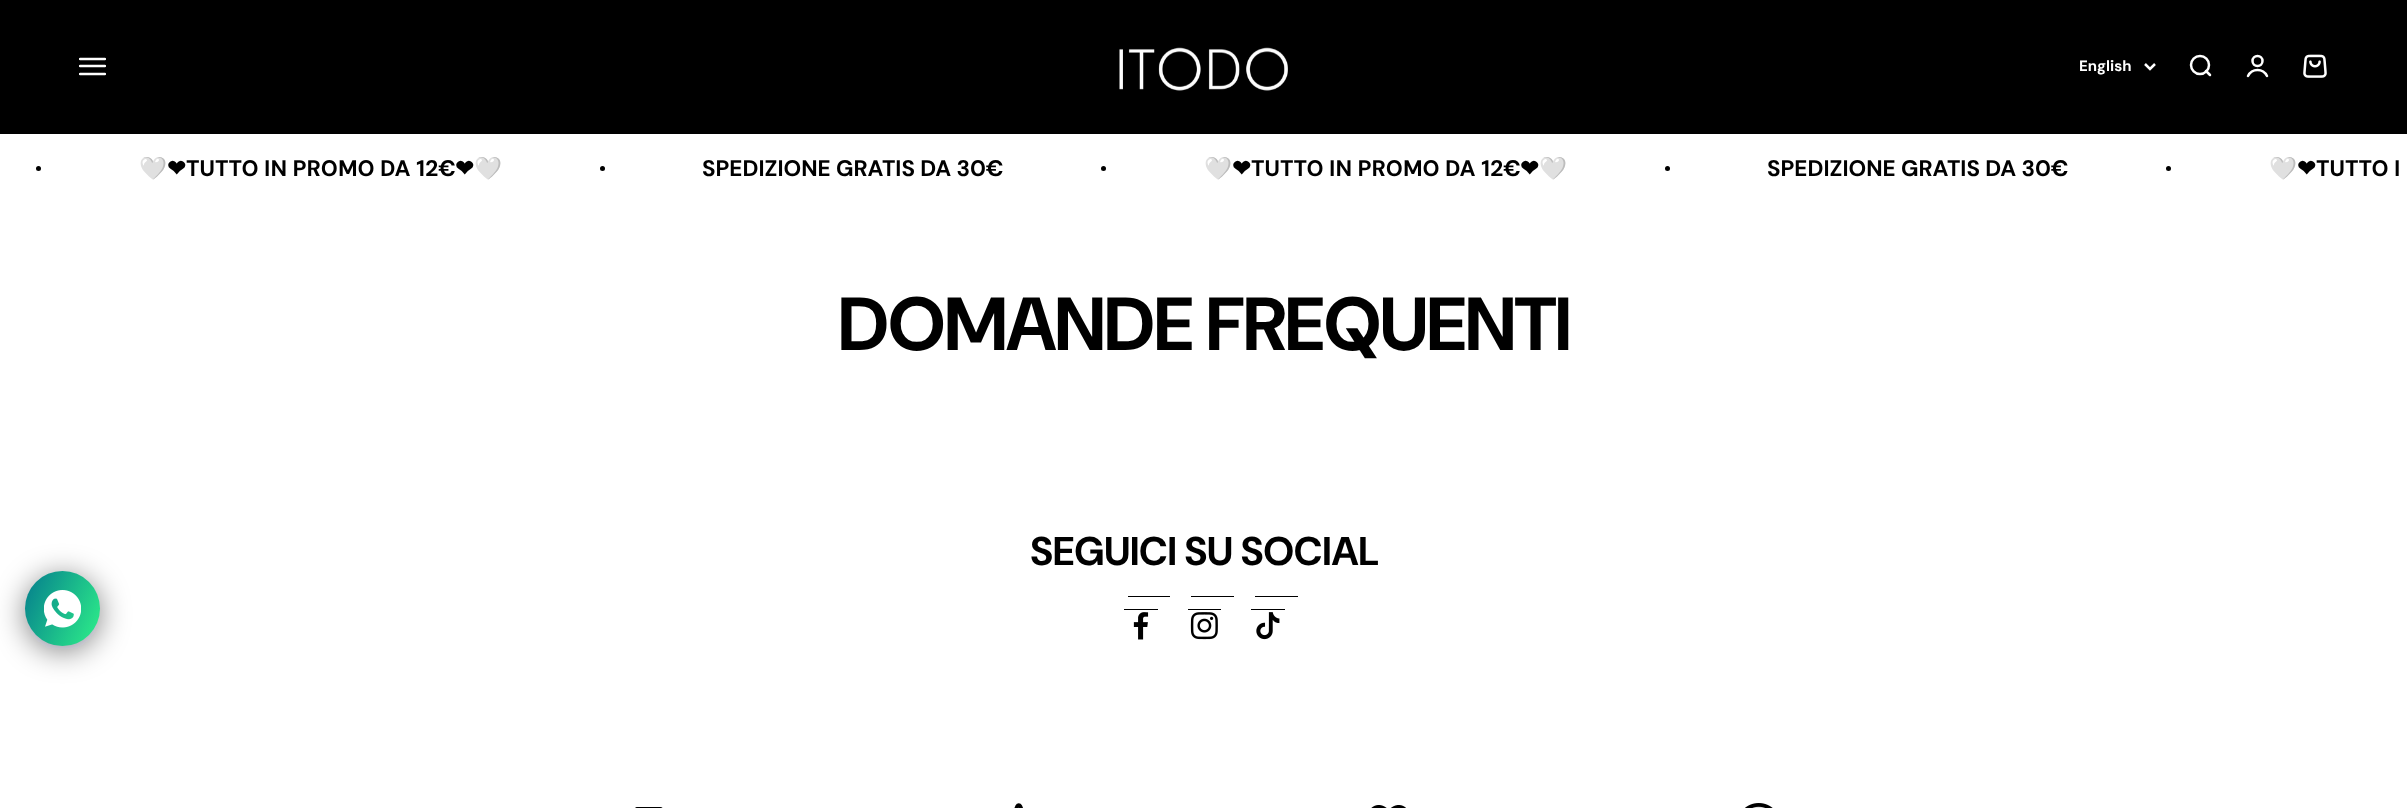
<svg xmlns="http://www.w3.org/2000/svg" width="2407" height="808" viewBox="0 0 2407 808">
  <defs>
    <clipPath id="clip1"><rect x="79" y="53" width="27" height="27"/></clipPath>
    <filter id="blur1" x="-50%" y="-200%" width="200%" height="500%"><feGaussianBlur stdDeviation="15"/></filter>
    <linearGradient id="g1" gradientUnits="userSpaceOnUse" x1="17" y1="588" x2="108" y2="630"><stop offset="0" stop-color="#047c8d"/><stop offset="1" stop-color="#2ff289"/></linearGradient>
  </defs>
  <rect width="100%" height="100%" fill="#ffffff"/>
  <rect x="0" y="0" width="2407" height="134" fill="#000000"/>
  <g clip-path="url(#clip1)">
    <path d="M80 59H105M80 66H105M80 74H105" fill="none" stroke="#ffffff" stroke-width="2.5" stroke-linecap="round"/>
  </g>
  <image x="1119" y="47" width="169" height="44" href="img1.png"/>
  <text x="2079" y="71" font-family="'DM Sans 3'" font-size="15" font-weight="bold" fill="#ffffff">English</text>
  <path d="M2145 64L2150 69L2155 64" fill="none" stroke="#ffffff" stroke-width="2.5"/>
  <circle cx="2200" cy="65" r="9" fill="none" stroke="#ffffff" stroke-width="2.5"/>
  <path d="M2206 71L2210 75" fill="none" stroke="#ffffff" stroke-width="2.5" stroke-linecap="round" stroke-linejoin="round"/>
  <circle cx="2257.5" cy="61" r="5" fill="none" stroke="#ffffff" stroke-width="2.5"/>
  <path d="M2248 76C2252 68 2263 68 2267 76" fill="none" stroke="#ffffff" stroke-width="2.5" stroke-linecap="round"/>
  <image x="2303" y="54" width="24" height="24" href="img2.png"/>
  <circle cx="38.5" cy="168.5" r="2.5" fill="#000000"/>
  <text x="139" y="176" font-family="Noto Color Emoji" font-size="22.5" font-weight="bold" fill="#000000">🤍</text>
  <text x="167" y="176" font-family="DejaVu Sans" font-size="22.5" font-weight="bold" fill="#000000">❤</text>
  <text x="186" y="176" font-family="'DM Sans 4'" font-size="22.5" font-weight="bold" fill="#000000">TUTTO IN PROMO DA 12€</text>
  <text x="455" y="176" font-family="DejaVu Sans" font-size="22.5" font-weight="bold" fill="#000000">❤</text>
  <text x="474" y="176" font-family="Noto Color Emoji" font-size="22.5" font-weight="bold" fill="#000000">🤍</text>
  <circle cx="602.5" cy="168.5" r="2.5" fill="#000000"/>
  <text x="702" y="176" font-family="'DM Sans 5'" font-size="22.5" font-weight="bold" fill="#000000">SPEDIZIONE GRATIS DA 30€</text>
  <circle cx="1103.5" cy="168.5" r="2.5" fill="#000000"/>
  <text x="1204" y="176" font-family="Noto Color Emoji" font-size="22.5" font-weight="bold" fill="#000000">🤍</text>
  <text x="1232" y="176" font-family="DejaVu Sans" font-size="22.5" font-weight="bold" fill="#000000">❤</text>
  <text x="1251" y="176" font-family="'DM Sans 4'" font-size="22.5" font-weight="bold" fill="#000000">TUTTO IN PROMO DA 12€</text>
  <text x="1520" y="176" font-family="DejaVu Sans" font-size="22.5" font-weight="bold" fill="#000000">❤</text>
  <text x="1539" y="176" font-family="Noto Color Emoji" font-size="22.5" font-weight="bold" fill="#000000">🤍</text>
  <circle cx="1667.5" cy="168.5" r="2.5" fill="#000000"/>
  <text x="1767" y="176" font-family="'DM Sans 5'" font-size="22.5" font-weight="bold" fill="#000000">SPEDIZIONE GRATIS DA 30€</text>
  <circle cx="2168.5" cy="168.5" r="2.5" fill="#000000"/>
  <text x="2269" y="176" font-family="Noto Color Emoji" font-size="22.5" font-weight="bold" fill="#000000">🤍</text>
  <text x="2297" y="176" font-family="DejaVu Sans" font-size="22.5" font-weight="bold" fill="#000000">❤</text>
  <text x="2316" y="176" font-family="'DM Sans 4'" font-size="22.5" font-weight="bold" fill="#000000">TUTTO I</text>
  <text x="838" y="350" font-family="DM Sans" font-size="75" font-weight="bold" letter-spacing="-1.5" fill="#000000">DOMANDE FREQUENTI</text>
  <text x="1030" y="565" font-family="'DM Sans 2'" font-size="40" font-weight="bold" letter-spacing="-0.75" fill="#000000">SEGUICI SU SOCIAL</text>
  <rect x="1128" y="596" width="42" height="1" fill="#000000"/>
  <rect x="1124" y="609" width="34" height="1" fill="#000000"/>
  <image x="1133" y="612" width="16" height="28" href="img3.png"/>
  <rect x="1191" y="596" width="43" height="1" fill="#000000"/>
  <rect x="1188" y="609" width="33" height="1" fill="#000000"/>
  <image x="1190" y="612" width="28" height="28" href="img4.png"/>
  <rect x="1255" y="596" width="43" height="1" fill="#000000"/>
  <rect x="1251" y="609" width="34" height="1" fill="#000000"/>
  <image x="1256" y="612" width="24" height="28" href="img5.png"/>
  <image x="635" y="807" width="28" height="1" href="img6.png"/>
  <image x="1014" y="803" width="9" height="5" href="img7.png"/>
  <image x="1371" y="805" width="35" height="3" href="img8.png"/>
  <image x="1745" y="803" width="28" height="5" href="img9.png"/>
  <rect x="25" y="576" width="75" height="75" rx="37.5" fill="#020610" fill-opacity="0.5" filter="url(#blur1)"/>
  <circle cx="62.5" cy="608.5" r="37.5" fill="url(#g1)"/>
  <image x="44" y="590" width="37" height="38" href="img10.png"/>
</svg>
